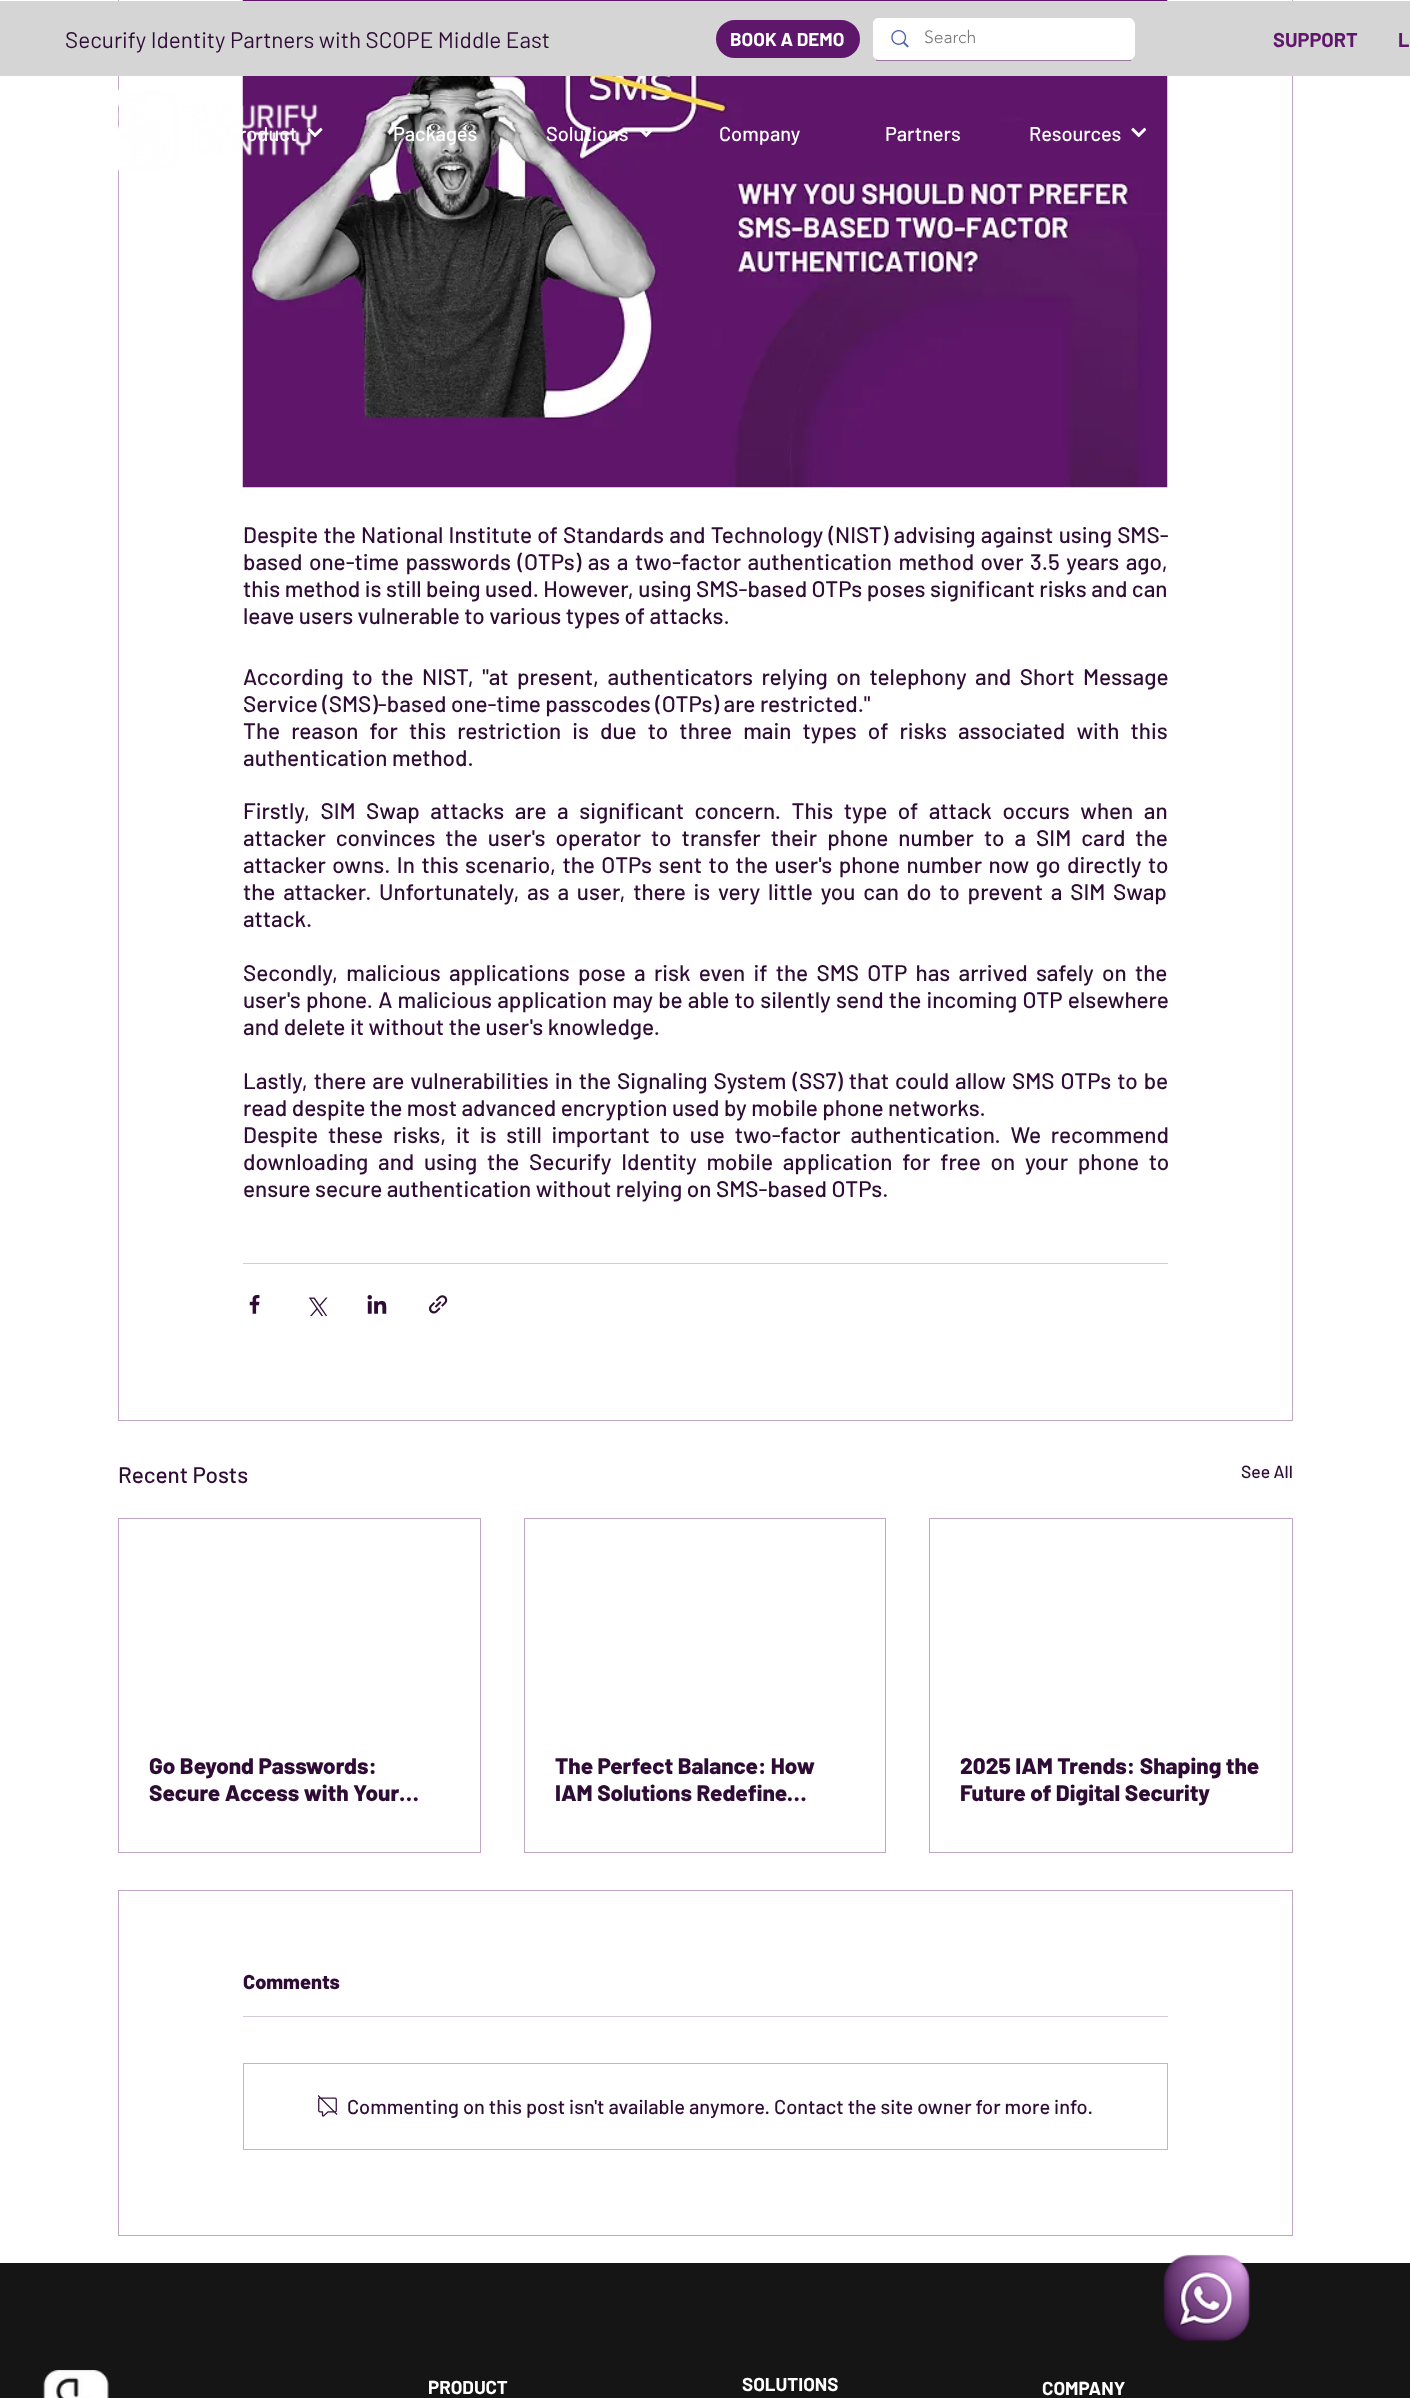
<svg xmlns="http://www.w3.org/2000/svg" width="1410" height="2398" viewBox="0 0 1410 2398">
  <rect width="100%" height="100%" fill="#ffffff"/>
  <rect x="118.5" y="-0.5" width="1174" height="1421" fill="none" stroke="#c2a4c7"/>
  <image x="242" y="0" width="926" height="488" href="img6.png"/>
  <rect x="0" y="1" width="1410" height="75" fill="#d5d5d5"/>
  <text x="65" y="48" font-family="Barlow" font-size="22.5" fill="#2f0c35">Securify Identity Partners with SCOPE Middle East</text>
  <rect x="717.5" y="21.5" width="141" height="35" rx="17.5" fill="#5e176a" stroke="#5e176a" stroke-width="3"/>
  <text x="730" y="46" font-family="Barlow" font-size="18.75" font-weight="bold" fill="#ffffff">BOOK A DEMO</text>
  <rect x="876" y="60" width="255" height="1" fill="#9a76a0"/>
  <path d="M873 22C874 20 875 19 877 18H1130C1133 19 1135 22 1135 25V54C1135 57 1132 60 1128 60H880C877 60 874 58 873 56Z" fill="#ffffff"/>
  <image x="891" y="30" width="18" height="18" href="img1.png"/>
  <text x="924" y="43" font-family="'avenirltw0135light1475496'" font-size="17.5" font-weight="300" fill="#787878">Search</text>
  <text x="1273" y="47" font-family="Barlow" font-size="20" font-weight="bold" fill="#5e176a">SUPPORT</text>
  <text x="1398" y="47" font-family="Barlow" font-size="20" font-weight="bold" fill="#5e176a">L</text>
  <image x="118" y="88" width="200" height="84" href="img2.png"/>
  <text x="239" y="141" font-family="Barlow" font-size="20" font-weight="500" fill="#ffffff">roduct</text>
  <image x="308" y="127" width="15" height="11" href="img3.png"/>
  <text x="393" y="141" font-family="Barlow" font-size="20" font-weight="500" fill="#ffffff">Packages</text>
  <text x="546" y="141" font-family="Barlow" font-size="20" font-weight="500" fill="#ffffff">Solutions</text>
  <image x="640" y="127" width="13" height="11" href="img4.png"/>
  <text x="719" y="141" font-family="Barlow" font-size="20" font-weight="500" fill="#ffffff">Company</text>
  <text x="885" y="141" font-family="Barlow" font-size="20" font-weight="500" fill="#ffffff">Partners</text>
  <text x="1029" y="141" font-family="Barlow" font-size="20" font-weight="500" fill="#ffffff">Resources</text>
  <image x="1131" y="127" width="15" height="11" href="img5.png"/>
  <text x="243" y="543" word-spacing="0.75" font-family="Barlow" font-size="22.5" font-weight="500" fill="#2f0c35">Despite the National Institute of Standards and Technology (NIST) advising against using SMS-</text>
  <text x="243" y="570" word-spacing="2" font-family="Barlow" font-size="22.5" font-weight="500" fill="#2f0c35">based one-time passwords (OTPs) as a two-factor authentication method over 3.5 years ago,</text>
  <text x="243" y="597" font-family="Barlow" font-size="22.5" font-weight="500" fill="#2f0c35">this method is still being used. However, using SMS-based OTPs poses significant risks and can</text>
  <text x="243" y="624" font-family="Barlow" font-size="22.5" font-weight="500" fill="#2f0c35">leave users vulnerable to various types of attacks.</text>
  <text x="243" y="685" word-spacing="4" font-family="Barlow" font-size="22.5" font-weight="500" fill="#2f0c35">According to the NIST, "at present, authenticators relying on telephony and Short Message</text>
  <text x="243" y="712" font-family="Barlow" font-size="22.5" font-weight="500" fill="#2f0c35">Service (SMS)-based one-time passcodes (OTPs) are restricted."</text>
  <text x="243" y="739" word-spacing="6.6" font-family="Barlow" font-size="22.5" font-weight="500" fill="#2f0c35">The reason for this restriction is due to three main types of risks associated with this</text>
  <text x="243" y="766" font-family="Barlow" font-size="22.5" font-weight="500" fill="#2f0c35">authentication method.</text>
  <text x="243" y="819" word-spacing="6" font-family="Barlow" font-size="22.5" font-weight="500" fill="#2f0c35">Firstly, SIM Swap attacks are a significant concern. This type of attack occurs when an</text>
  <text x="243" y="846" word-spacing="5.5" font-family="Barlow" font-size="22.5" font-weight="500" fill="#2f0c35">attacker convinces the user's operator to transfer their phone number to a SIM card the</text>
  <text x="243" y="873" word-spacing="2" font-family="Barlow" font-size="22.5" font-weight="500" fill="#2f0c35">attacker owns. In this scenario, the OTPs sent to the user's phone number now go directly to</text>
  <text x="243" y="900" word-spacing="3.25" font-family="Barlow" font-size="22.5" font-weight="500" fill="#2f0c35">the attacker. Unfortunately, as a user, there is very little you can do to prevent a SIM Swap</text>
  <text x="243" y="927" font-family="Barlow" font-size="22.5" font-weight="500" fill="#2f0c35">attack.</text>
  <text x="243" y="981" word-spacing="3.75" font-family="Barlow" font-size="22.5" font-weight="500" fill="#2f0c35">Secondly, malicious applications pose a risk even if the SMS OTP has arrived safely on the</text>
  <text x="243" y="1008" word-spacing="0.75" font-family="Barlow" font-size="22.5" font-weight="500" fill="#2f0c35">user's phone. A malicious application may be able to silently send the incoming OTP elsewhere</text>
  <text x="243" y="1035" font-family="Barlow" font-size="22.5" font-weight="500" fill="#2f0c35">and delete it without the user's knowledge.</text>
  <text x="243" y="1089" word-spacing="1.5" font-family="Barlow" font-size="22.5" font-weight="500" fill="#2f0c35">Lastly, there are vulnerabilities in the Signaling System (SS7) that could allow SMS OTPs to be</text>
  <text x="243" y="1116" font-family="Barlow" font-size="22.5" font-weight="500" fill="#2f0c35">read despite the most advanced encryption used by mobile phone networks.</text>
  <text x="243" y="1143" word-spacing="5.25" font-family="Barlow" font-size="22.5" font-weight="500" fill="#2f0c35">Despite these risks, it is still important to use two-factor authentication. We recommend</text>
  <text x="243" y="1170" word-spacing="5.25" font-family="Barlow" font-size="22.5" font-weight="500" fill="#2f0c35">downloading and using the Securify Identity mobile application for free on your phone to</text>
  <text x="243" y="1197" font-family="Barlow" font-size="22.5" font-weight="500" fill="#2f0c35">ensure secure authentication without relying on SMS-based OTPs.</text>
  <rect x="243" y="1263" width="925" height="1" fill="#d5ced7"/>
  <image x="249" y="1295" width="11" height="19" href="img7.png"/>
  <image x="308" y="1297" width="20" height="19" href="img8.png"/>
  <image x="367" y="1295" width="20" height="19" href="img9.png"/>
  <image x="429" y="1295" width="19" height="19" href="img10.png"/>
  <text x="118" y="1483" font-family="Barlow" font-size="22.5" font-weight="500" fill="#2f0c35">Recent Posts</text>
  <text x="1241" y="1478" font-family="Barlow" font-size="17.5" font-weight="500" fill="#2f0c35">See All</text>
  <rect x="118.5" y="1518.5" width="362" height="334" fill="none" stroke="#c2a4c7"/>
  <text x="149" y="1774" font-family="Barlow" font-size="22.5" font-weight="800" fill="#2f0c35">Go Beyond Passwords:</text>
  <text x="149" y="1801" font-family="Barlow" font-size="22.5" font-weight="800" fill="#2f0c35">Secure Access with Your…</text>
  <rect x="524.5" y="1518.5" width="361" height="334" fill="none" stroke="#c2a4c7"/>
  <text x="555" y="1774" font-family="Barlow" font-size="22.5" font-weight="800" fill="#2f0c35">The Perfect Balance: How</text>
  <text x="555" y="1801" font-family="Barlow" font-size="22.5" font-weight="800" fill="#2f0c35">IAM Solutions Redefine…</text>
  <rect x="929.5" y="1518.5" width="363" height="334" fill="none" stroke="#c2a4c7"/>
  <text x="960" y="1774" font-family="Barlow" font-size="22.5" font-weight="800" fill="#2f0c35">2025 IAM Trends: Shaping the</text>
  <text x="960" y="1801" font-family="Barlow" font-size="22.5" font-weight="800" fill="#2f0c35">Future of Digital Security</text>
  <rect x="118.5" y="1890.5" width="1174" height="345" fill="none" stroke="#c2a4c7"/>
  <text x="243" y="1989" font-family="Barlow" font-size="20" font-weight="800" fill="#2f0c35">Comments</text>
  <rect x="243" y="2016" width="925" height="1" fill="#d5ced7"/>
  <rect x="243.5" y="2063.5" width="924" height="86" fill="none" stroke="#c1b6c2"/>
  <image x="318" y="2095" width="20" height="22" href="img11.png"/>
  <text x="347" y="2114" font-family="Barlow" font-size="20" font-weight="500" fill="#2f0c35">Commenting on this post isn't available anymore. Contact the site owner for more info.</text>
  <rect x="0" y="2263" width="1410" height="135" fill="#151515"/>
  <image x="1163" y="2254" width="88" height="88" href="img12.png"/>
  <image x="43" y="2370" width="66" height="28" href="img13.png"/>
  <text x="428" y="2394" font-family="Barlow" font-size="18.75" font-weight="bold" fill="#ffffff">PRODUCT</text>
  <text x="742" y="2391" font-family="Barlow" font-size="18.75" font-weight="bold" fill="#ffffff">SOLUTIONS</text>
  <text x="1042" y="2395" font-family="Barlow" font-size="18.75" font-weight="bold" fill="#ffffff">COMPANY</text>
</svg>
